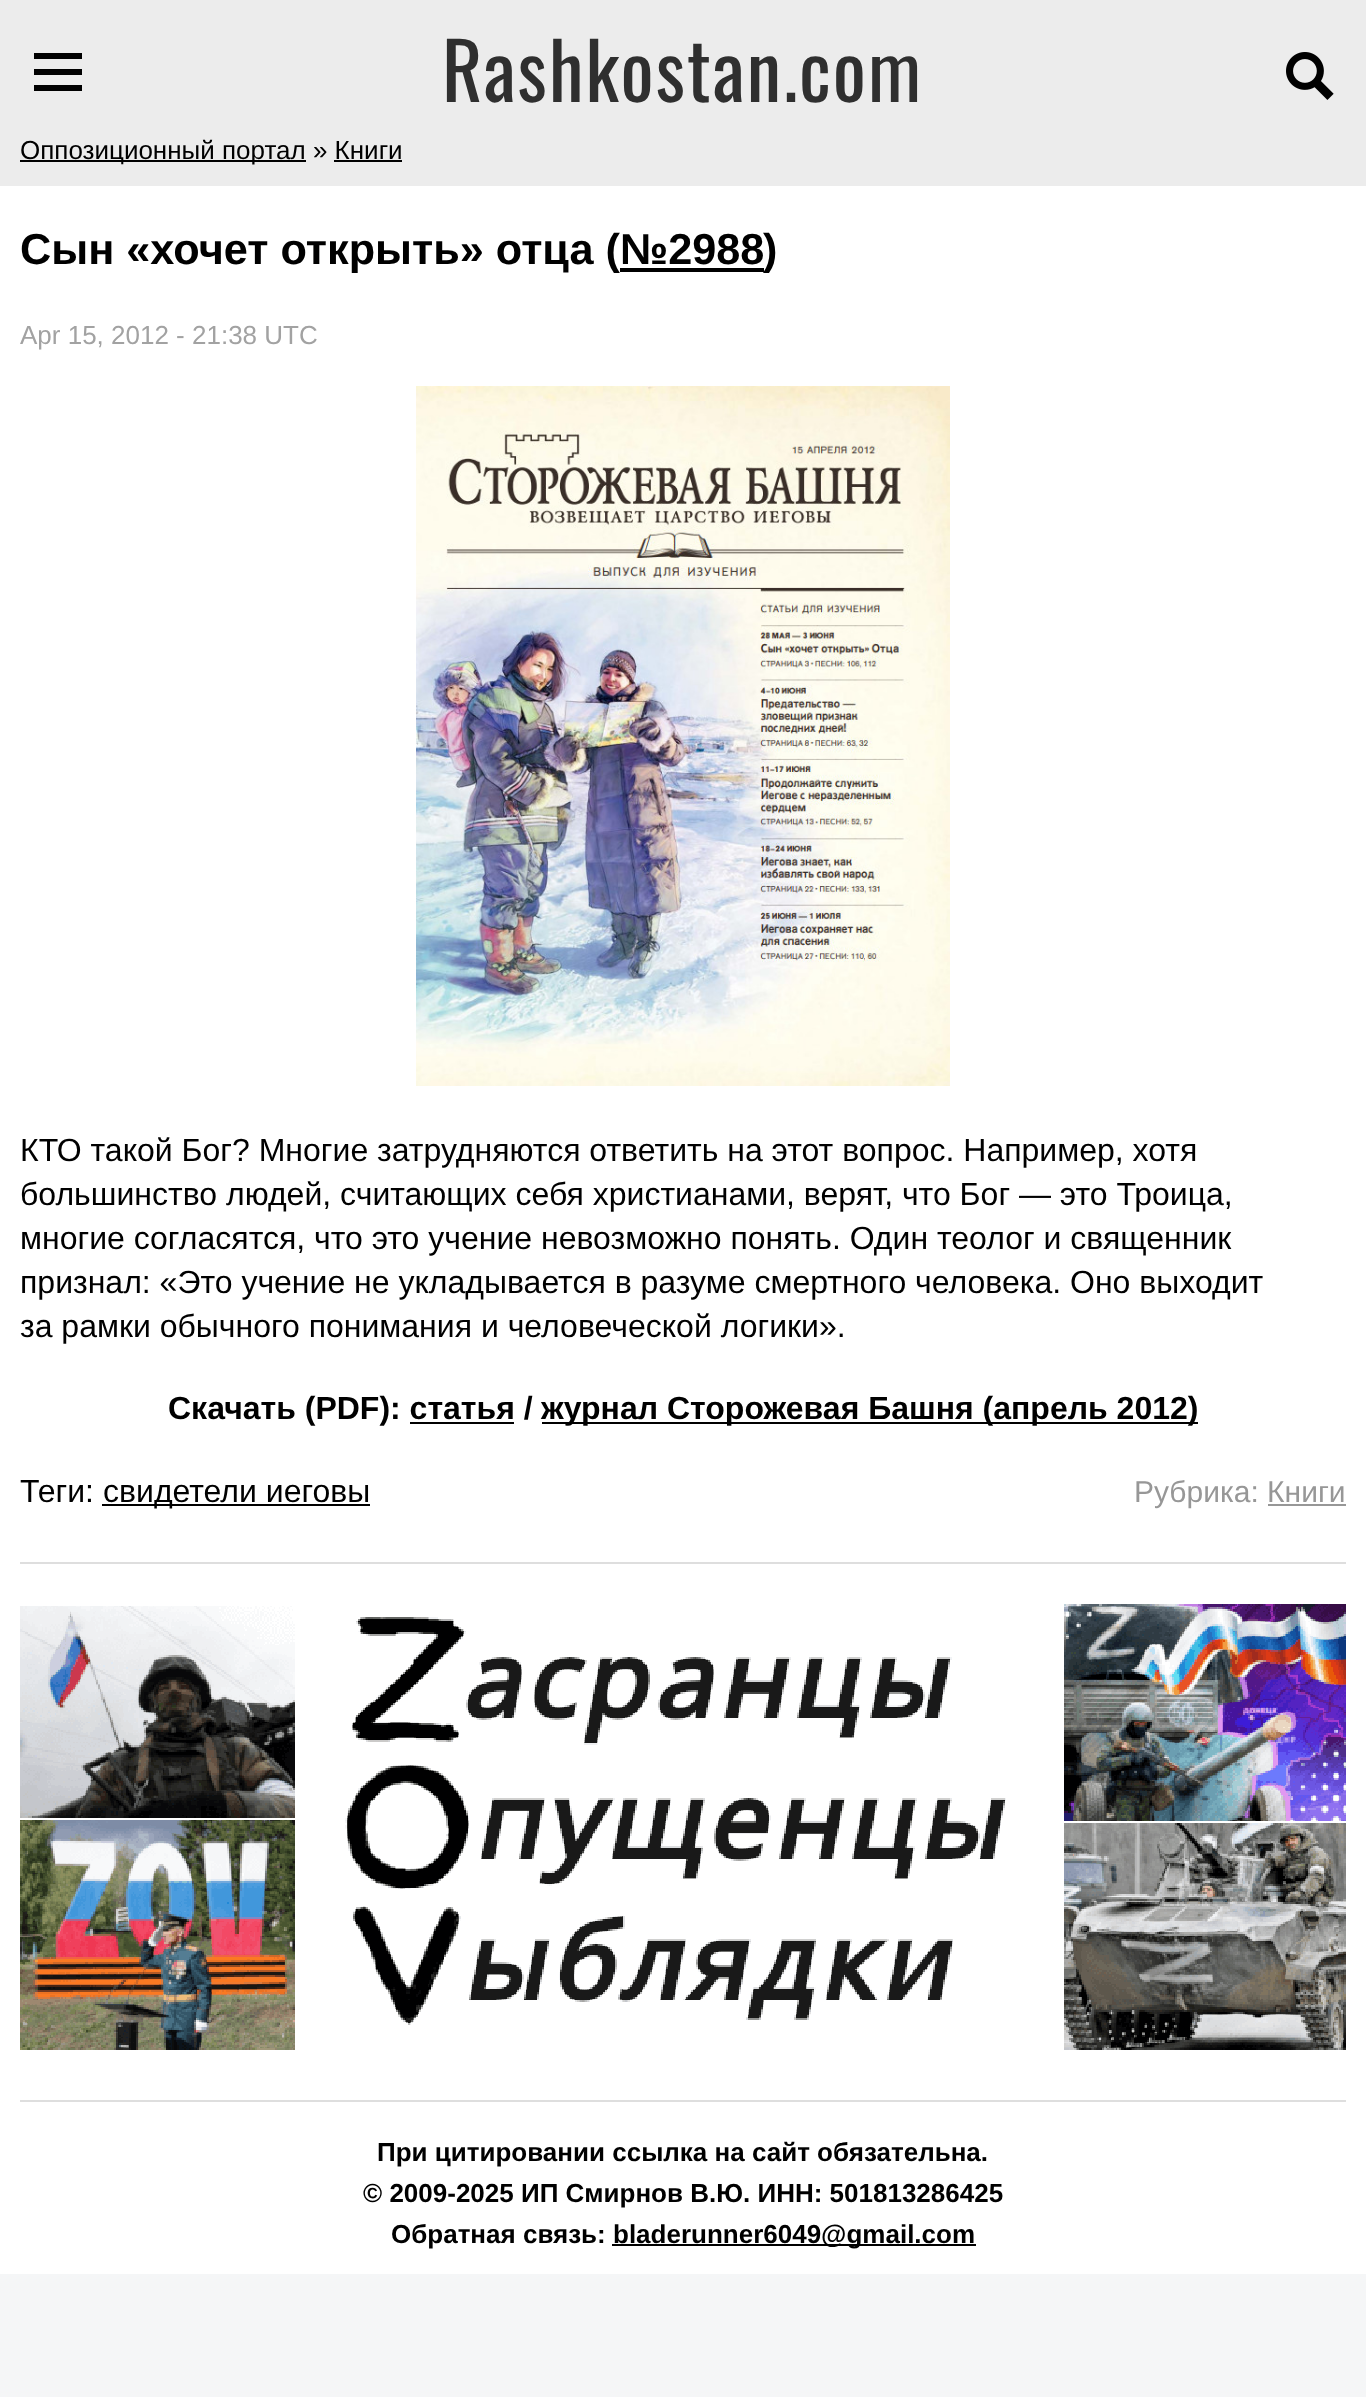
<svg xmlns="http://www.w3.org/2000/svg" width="1366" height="2397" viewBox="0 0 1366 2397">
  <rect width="100%" height="100%" fill="#f5f6f7"/>
  <rect x="0" y="186" width="1366" height="2088" fill="#ffffff"/>
  <rect x="0" y="0" width="1366" height="186" fill="#ececec"/>
  <rect x="34" y="53" width="48" height="6" fill="#000000"/>
  <rect x="34" y="69" width="48" height="6" fill="#000000"/>
  <rect x="34" y="85" width="48" height="6" fill="#000000"/>
  <text x="442" y="102" font-family="Oswald" font-size="78" letter-spacing="2" fill="#2f2f2f">Rashkostan.com</text>
  <image x="1286" y="52" width="48" height="48" href="img1.png"/>
  <rect x="20" y="160" width="286" height="2" fill="#000000"/>
  <text x="20" y="159" font-family="Liberation Sans" font-size="26" fill="#000000">Оппозиционный портал » Книги</text>
  <rect x="334" y="160" width="68" height="2" fill="#000000"/>
  <text x="20" y="264" font-family="Liberation Sans" font-size="43.25" font-weight="bold" fill="#000000">Сын «хочет открыть» отца (№2988</text>
  <rect x="620" y="268" width="144" height="4" fill="#000000"/>
  <text x="763" y="264" font-family="Liberation Sans" font-size="43.25" font-weight="bold" fill="#000000">)</text>
  <rect x="20" y="1562" width="1326" height="2" fill="#dedede"/>
  <text x="20" y="344" font-family="Liberation Sans" font-size="26" fill="#a2a2a2">Apr 15, 2012 - 21:38 UTC</text>
  <image x="416" y="386" width="534" height="700" href="img2.png"/>
  <text x="20" y="1161" font-family="Liberation Sans" font-size="32" fill="#000000">КТО такой Бог? Многие затрудняются ответить на этот вопрос. Например, хотя</text>
  <text x="20" y="1205" font-family="Liberation Sans" font-size="32" fill="#000000">большинство людей, считающих себя христианами, верят, что Бог — это Троица,</text>
  <text x="20" y="1249" font-family="Liberation Sans" font-size="32" fill="#000000">многие согласятся, что это учение невозможно понять. Один теолог и священник</text>
  <text x="20" y="1293" font-family="Liberation Sans" font-size="32" fill="#000000">признал: «Это учение не укладывается в разуме смертного человека. Оно выходит</text>
  <text x="20" y="1337" font-family="Liberation Sans" font-size="32" fill="#000000">за рамки обычного понимания и человеческой логики».</text>
  <text x="168" y="1419" font-family="Liberation Sans" font-size="32" font-weight="bold" fill="#000000">Скачать (PDF): статья /</text>
  <rect x="542" y="1422" width="656" height="2" fill="#000000"/>
  <text x="541" y="1419" font-family="Liberation Sans" font-size="32" font-weight="bold" fill="#000000">журнал Сторожевая Башня (апрель 2012)</text>
  <rect x="410" y="1422" width="104" height="2" fill="#000000"/>
  <text x="20" y="1502" font-family="Liberation Sans" font-size="32" fill="#000000">Теги:</text>
  <rect x="102" y="1504" width="268" height="2" fill="#000000"/>
  <text x="103" y="1502" font-family="Liberation Sans" font-size="32" fill="#000000">свидетели иеговы</text>
  <text x="1134" y="1502" font-family="Liberation Sans" font-size="30" fill="#979797">Рубрика: Книги</text>
  <rect x="1268" y="1504" width="78" height="2" fill="#979797"/>
  <image x="20" y="1604" width="1326" height="446" href="img3.png"/>
  <rect x="20" y="2100" width="1326" height="2" fill="#dedede"/>
  <text x="377" y="2161" font-family="Liberation Sans" font-size="26" font-weight="bold" fill="#000000">При цитировании ссылка на сайт обязательна.</text>
  <text x="363" y="2202" font-family="Liberation Sans" font-size="26" font-weight="bold" fill="#000000">© 2009-2025 ИП Смирнов В.Ю. ИНН: 501813286425</text>
  <text x="391" y="2243" font-family="Liberation Sans" font-size="26" font-weight="bold" fill="#000000">Обратная связь:</text>
  <rect x="612" y="2244" width="364" height="2" fill="#000000"/>
  <text x="613" y="2243" font-family="Liberation Sans" font-size="26" font-weight="bold" fill="#000000">bladerunner6049@gmail.com</text>
</svg>
